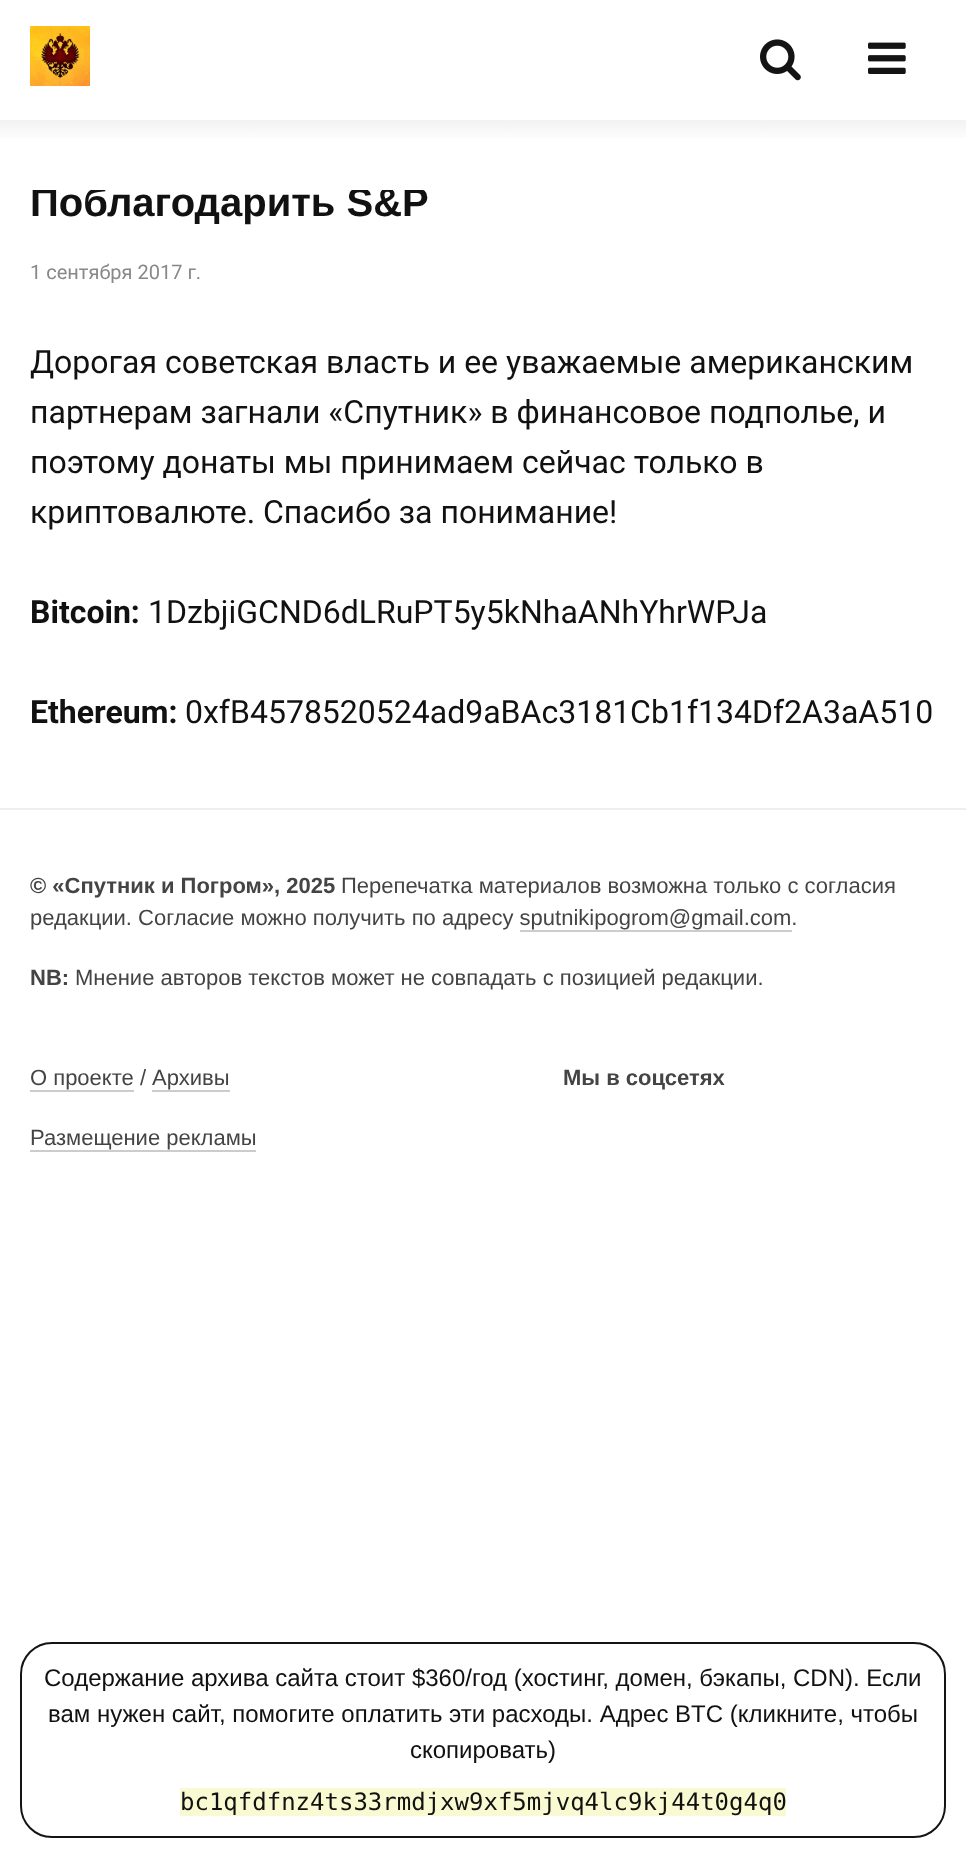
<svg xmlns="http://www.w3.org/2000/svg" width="966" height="1874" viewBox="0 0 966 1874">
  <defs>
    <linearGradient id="g1" gradientUnits="userSpaceOnUse" x1="483" y1="120" x2="483" y2="142"><stop offset="0" stop-color="#f2f2f2"/><stop offset="1" stop-color="#ffffff"/></linearGradient>
    <clipPath id="clip1"><rect x="0" y="190" width="966" height="618"/></clipPath>
  </defs>
  <rect width="100%" height="100%" fill="#ffffff"/>
  <image x="30" y="26" width="60" height="60" href="img1.png"/>
  <image x="760" y="39" width="41" height="42" href="img2.png"/>
  <image x="868" y="42" width="38" height="32" href="img3.png"/>
  <rect x="0" y="120" width="966" height="18" fill="url(#g1)"/>
  <g clip-path="url(#clip1)">
    <text x="30" y="216" font-family="Liberation Sans" font-size="40" font-weight="bold" fill="#111111">Поблагодарить S&amp;P</text>
  </g>
  <text x="30" y="279" font-family="Roboto" font-size="20" fill="#888888">1 сентября 2017 г.</text>
  <text x="30" y="373" font-family="Roboto" font-size="32" fill="#111111">Дорогая советская власть и ее уважаемые американским</text>
  <text x="30" y="423" font-family="Roboto" font-size="32" fill="#111111">партнерам загнали «Спутник» в финансовое подполье, и</text>
  <text x="30" y="473" font-family="Roboto" font-size="32" fill="#111111">поэтому донаты мы принимаем сейчас только в</text>
  <text x="30" y="523" font-family="Roboto" font-size="32" fill="#111111">криптовалюте. Спасибо за понимание!</text>
  <text x="30" y="623" font-family="Roboto" font-size="32" font-weight="bold" fill="#111111">Bitcoin:</text>
  <text x="148" y="623" font-family="Roboto" font-size="32" fill="#111111">1DzbjiGCND6dLRuPT5y5kNhaANhYhrWPJa</text>
  <text x="30" y="723" font-family="Roboto" font-size="32" font-weight="bold" fill="#111111">Ethereum:</text>
  <text x="185" y="723" font-family="Roboto" font-size="32" fill="#111111">0xfB4578520524ad9aBAc3181Cb1f134Df2A3aA510</text>
  <rect x="0" y="808" width="966" height="2" fill="#eeeeee"/>
  <text x="30" y="893" font-family="Liberation Sans" font-size="22" font-weight="bold" fill="#444444">© «Спутник и Погром», 2025</text>
  <text x="341" y="893" font-family="Liberation Sans" font-size="22" fill="#444444">Перепечатка материалов возможна только с согласия</text>
  <text x="30" y="925" font-family="Liberation Sans" font-size="22" fill="#444444">редакции. Согласие можно получить по адресу sputnikipogrom@gmail.com.</text>
  <rect x="520" y="930" width="272" height="2" fill="#cccccc"/>
  <text x="30" y="985" font-family="Liberation Sans" font-size="22" font-weight="bold" fill="#444444">NB:</text>
  <text x="75" y="985" font-family="Liberation Sans" font-size="22" fill="#444444">Мнение авторов текстов может не совпадать с позицией редакции.</text>
  <text x="30" y="1085" font-family="Liberation Sans" font-size="22" fill="#444444">О проекте / Архивы</text>
  <rect x="30" y="1090" width="104" height="2" fill="#cccccc"/>
  <rect x="152" y="1090" width="78" height="2" fill="#cccccc"/>
  <text x="30" y="1145" font-family="Liberation Sans" font-size="22" fill="#444444">Размещение рекламы</text>
  <rect x="30" y="1150" width="226" height="2" fill="#cccccc"/>
  <text x="563" y="1085" font-family="Liberation Sans" font-size="22" font-weight="bold" fill="#444444">Мы в соцсетях</text>
  <rect x="21" y="1643" width="924" height="194" rx="31" fill="none" stroke="#141414" stroke-width="2"/>
  <text x="44" y="1686" font-family="Liberation Sans" font-size="24" fill="#111111">Содержание архива сайта стоит $360/год (хостинг, домен, бэкапы, CDN). Если</text>
  <text x="48" y="1722" font-family="Liberation Sans" font-size="24" fill="#111111">вам нужен сайт, помогите оплатить эти расходы. Адрес BTC (кликните, чтобы</text>
  <text x="410" y="1758" font-family="Liberation Sans" font-size="24" fill="#111111">скопировать)</text>
  <rect x="180" y="1788" width="606" height="28" fill="#fafad2"/>
  <text x="180" y="1810" font-family="DejaVu Sans Mono" font-size="24" fill="#111111">bc1qfdfnz4ts33rmdjxw9xf5mjvq4lc9kj44t0g4q0</text>
</svg>
